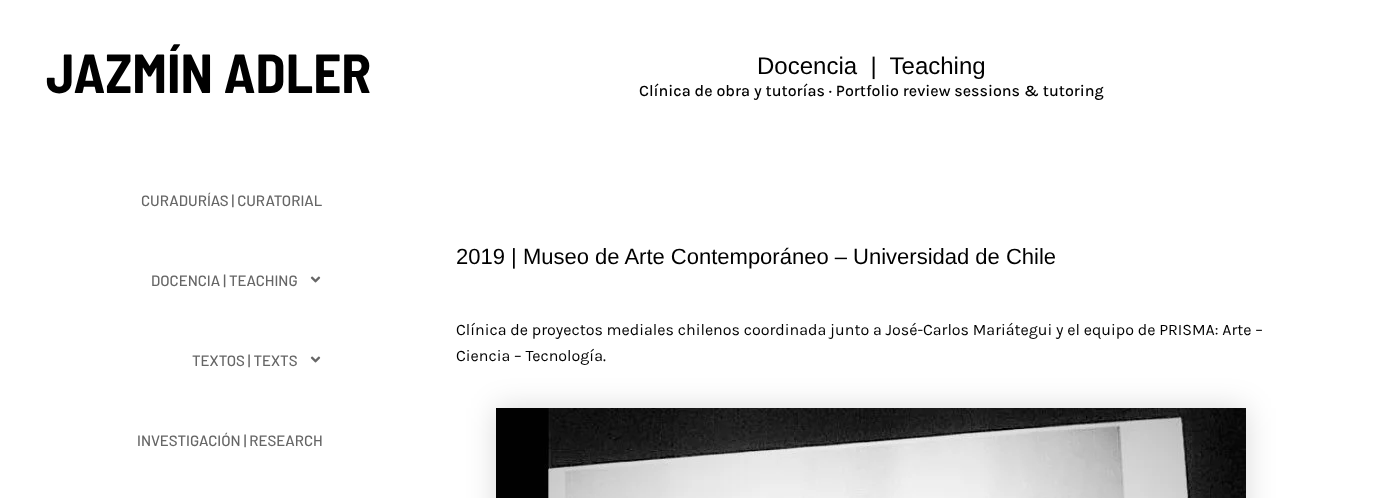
<svg xmlns="http://www.w3.org/2000/svg" width="1393" height="498" viewBox="0 0 1393 498">
  <defs>
    <filter id="blur1" x="-50%" y="-200%" width="200%" height="500%"><feGaussianBlur stdDeviation="15"/></filter>
  </defs>
  <rect width="100%" height="100%" fill="#ffffff"/>
  <text x="46" y="93" font-family="Barlow Semi Condensed" font-size="55" font-weight="bold" fill="#000000">JAZMÍN ADLER</text>
  <text x="141" y="206" font-family="Barlow" font-size="15" font-weight="500" fill="#666666">CURADURÍAS | CURATORIAL</text>
  <text x="151" y="286" font-family="Barlow" font-size="15" font-weight="500" fill="#666666">DOCENCIA | TEACHING</text>
  <image x="310" y="276" width="11" height="7" href="img1.png"/>
  <text x="192" y="366" font-family="Barlow" font-size="15" font-weight="500" fill="#666666">TEXTOS | TEXTS</text>
  <image x="310" y="356" width="11" height="7" href="img1.png"/>
  <text x="137" y="446" font-family="Barlow" font-size="15" font-weight="500" fill="#666666">INVESTIGACIÓN | RESEARCH</text>
  <text x="757" y="74" font-family="Liberation Sans" font-size="24" fill="#000000" xml:space="preserve">Docencia  |  Teaching</text>
  <text x="639" y="96" font-family="Karla" font-size="16" font-weight="500" fill="#000000">Clínica de obra y tutorías · Portfolio review sessions &amp; tutoring</text>
  <text x="456" y="264" font-family="Liberation Sans" font-size="22" fill="#000000">2019 | Museo de Arte Contemporáneo – Universidad de Chile</text>
  <text x="456" y="335" font-family="Karla" font-size="16" fill="#000000">Clínica de proyectos mediales chilenos coordinada junto a José-Carlos Mariátegui y el equipo de PRISMA: Arte –</text>
  <text x="456" y="361" font-family="Karla" font-size="16" fill="#000000">Ciencia – Tecnología.</text>
  <rect x="496" y="408" width="750" height="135" fill="#000000" fill-opacity="0.15" filter="url(#blur1)"/>
  <image x="496" y="408" width="750" height="90" href="img2.png"/>
</svg>
